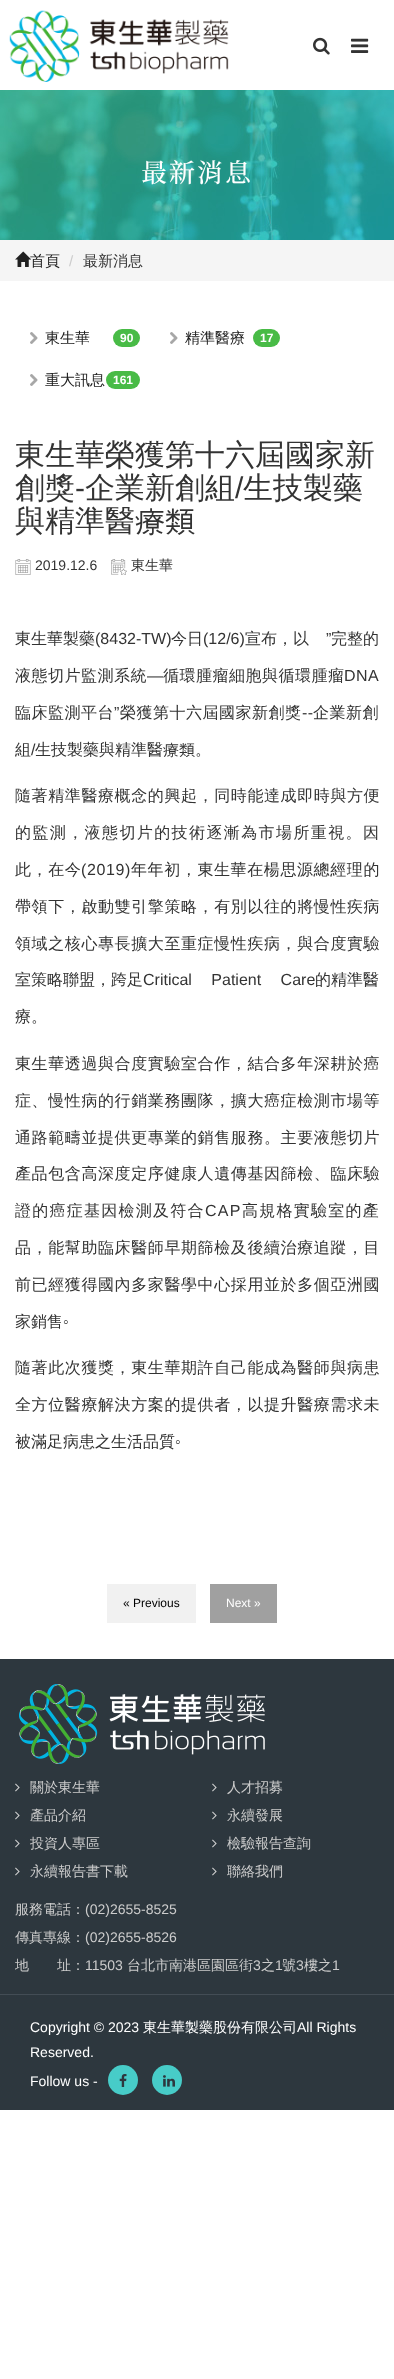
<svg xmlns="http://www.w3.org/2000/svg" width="394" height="2379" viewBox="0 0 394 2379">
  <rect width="100%" height="100%" fill="#ffffff"/>
  <image x="9" y="10" width="220" height="72" href="img1.png"/>
  <image x="313" y="37" width="17" height="18" href="img2.png"/>
  <image x="351" y="38" width="18" height="15" href="img3.png"/>
  <image x="0" y="90" width="394" height="150" href="img4.png"/>
  <text x="141" y="182" font-family="Noto Serif TC" font-size="26" font-weight="500" letter-spacing="2" fill="#ffffff">最新消息</text>
  <rect x="0" y="240" width="394" height="41" fill="#f5f5f5"/>
  <text x="30" y="266" font-family="WenQuanYi Zen Hei" font-size="15" font-weight="500" fill="#202020">首頁</text>
  <image x="15" y="251" width="16" height="16" href="img5.png"/>
  <text x="69" y="266" font-family="Liberation Sans" font-size="15" fill="#cccccc">/</text>
  <text x="83" y="266" font-family="WenQuanYi Zen Hei" font-size="15" font-weight="500" fill="#333333">最新消息</text>
  <image x="30" y="332" width="8" height="12" href="img6.png"/>
  <text x="45" y="343" font-family="WenQuanYi Zen Hei" font-size="15" font-weight="500" fill="#202020">東生華</text>
  <rect x="113" y="329" width="27" height="18" rx="9" fill="#48bb46"/>
  <text x="120" y="342" font-family="Liberation Sans" font-size="12" font-weight="bold" fill="#ffffff">90</text>
  <image x="170" y="332" width="8" height="12" href="img6.png"/>
  <text x="185" y="343" font-family="WenQuanYi Zen Hei" font-size="15" font-weight="500" fill="#202020">精準醫療</text>
  <rect x="253" y="329" width="27" height="18" rx="9" fill="#48bb46"/>
  <text x="260" y="342" font-family="Liberation Sans" font-size="12" font-weight="bold" fill="#ffffff">17</text>
  <image x="30" y="374" width="8" height="12" href="img6.png"/>
  <text x="45" y="385" font-family="WenQuanYi Zen Hei" font-size="15" font-weight="500" fill="#202020">重大訊息</text>
  <rect x="106" y="371" width="34" height="18" rx="9" fill="#48bb46"/>
  <text x="113" y="384" font-family="Liberation Sans" font-size="12" font-weight="bold" fill="#ffffff">161</text>
  <text x="15" y="465" font-family="WenQuanYi Zen Hei" font-size="30" font-weight="500" fill="#333333">東生華榮獲第十六屆國家新</text>
  <text x="15" y="498" font-family="WenQuanYi Zen Hei" font-size="30" font-weight="500" fill="#333333">創獎</text>
  <text x="75" y="498" font-family="Liberation Sans" font-size="30" fill="#333333">-</text>
  <text x="85" y="498" font-family="WenQuanYi Zen Hei" font-size="30" font-weight="500" fill="#333333">企業新創組</text>
  <text x="235" y="498" font-family="Liberation Sans" font-size="30" fill="#333333">/</text>
  <text x="243" y="498" font-family="WenQuanYi Zen Hei" font-size="30" font-weight="500" fill="#333333">生技製藥</text>
  <text x="15" y="531" font-family="WenQuanYi Zen Hei" font-size="30" font-weight="500" fill="#333333">與精準醫療類</text>
  <image x="15" y="559" width="16" height="16" href="img7.png"/>
  <text x="35" y="570" font-family="Liberation Sans" font-size="14" fill="#333333">2019.12.6</text>
  <image x="111" y="559" width="16" height="16" href="img8.png"/>
  <text x="131" y="570" font-family="WenQuanYi Zen Hei" font-size="14" font-weight="500" fill="#333333">東生華</text>
  <text x="15" y="644" font-family="WenQuanYi Zen Hei" font-size="16" font-weight="500" fill="#333333">東生華製藥</text>
  <text x="95" y="644" font-family="Liberation Sans" font-size="16" fill="#333333">(8432-TW)</text>
  <text x="171" y="644" font-family="WenQuanYi Zen Hei" font-size="16" font-weight="500" fill="#333333">今日</text>
  <text x="203" y="644" font-family="Liberation Sans" font-size="16" fill="#333333">(12/6)</text>
  <text x="245" y="644" font-family="WenQuanYi Zen Hei" font-size="16" font-weight="500" fill="#333333">宣布，以</text>
  <text x="326" y="644" font-family="Liberation Sans" font-size="16" fill="#333333">”</text>
  <text x="331" y="644" font-family="WenQuanYi Zen Hei" font-size="16" font-weight="500" fill="#333333">完整的</text>
  <text x="15" y="681" font-family="WenQuanYi Zen Hei" font-size="16" font-weight="500" letter-spacing="0.5" fill="#333333">液態切片監測系統</text>
  <text x="147" y="681" font-family="Liberation Sans" font-size="16" letter-spacing="0.5" fill="#333333">—</text>
  <text x="163" y="681" font-family="WenQuanYi Zen Hei" font-size="16" font-weight="500" letter-spacing="0.5" fill="#333333">循環腫瘤細胞與循環腫瘤</text>
  <text x="344" y="681" font-family="Liberation Sans" font-size="16" letter-spacing="0.5" fill="#333333">DNA</text>
  <text x="15" y="718" font-family="WenQuanYi Zen Hei" font-size="16" font-weight="500" letter-spacing="0.5" fill="#333333">臨床監測平台</text>
  <text x="114" y="718" font-family="Liberation Sans" font-size="16" letter-spacing="0.5" fill="#333333">”</text>
  <text x="120" y="718" font-family="WenQuanYi Zen Hei" font-size="16" font-weight="500" letter-spacing="0.5" fill="#333333">榮獲第十六屆國家新創獎</text>
  <text x="313" y="718" font-family="WenQuanYi Zen Hei" font-size="16" font-weight="500" letter-spacing="0.5" fill="#333333">企業新創</text>
  <text x="302" y="718" font-family="Liberation Sans" font-size="16" letter-spacing="0.5" fill="#333333">--</text>
  <text x="15" y="755" font-family="WenQuanYi Zen Hei" font-size="16" font-weight="500" fill="#333333">組</text>
  <text x="31" y="755" font-family="Liberation Sans" font-size="16" fill="#333333">/</text>
  <text x="35" y="755" font-family="WenQuanYi Zen Hei" font-size="16" font-weight="500" fill="#333333">生技製藥與精準醫療類。</text>
  <text x="15" y="801" font-family="WenQuanYi Zen Hei" font-size="16" font-weight="500" letter-spacing="0.6" fill="#333333">隨著精準醫療概念的興起，同時能達成即時與方便</text>
  <text x="15" y="838" font-family="WenQuanYi Zen Hei" font-size="16" font-weight="500" letter-spacing="1.4" fill="#333333">的監測，液態切片的技術逐漸為市場所重視。因</text>
  <text x="15" y="875" font-family="WenQuanYi Zen Hei" font-size="16" font-weight="500" letter-spacing="0.6" fill="#333333">此，在今</text>
  <text x="81" y="875" font-family="Liberation Sans" font-size="16" letter-spacing="0.6" fill="#333333">(2019)</text>
  <text x="131" y="875" font-family="WenQuanYi Zen Hei" font-size="16" font-weight="500" letter-spacing="0.6" fill="#333333">年年初，東生華在楊思源總經理的</text>
  <text x="15" y="912" font-family="WenQuanYi Zen Hei" font-size="16" font-weight="500" letter-spacing="0.6" fill="#333333">帶領下，啟動雙引擎策略，有別以往的將慢性疾病</text>
  <text x="15" y="949" font-family="WenQuanYi Zen Hei" font-size="16" font-weight="500" letter-spacing="0.6" fill="#333333">領域之核心專長擴大至重症慢性疾病，與合度實驗</text>
  <text x="15" y="985" font-family="WenQuanYi Zen Hei" font-size="16" font-weight="500" fill="#333333">室策略聯盟，跨足</text>
  <text x="143" y="985" word-spacing="15" font-family="Liberation Sans" font-size="16" fill="#333333">Critical Patient Care</text>
  <text x="315" y="985" font-family="WenQuanYi Zen Hei" font-size="16" font-weight="500" fill="#333333">的精準醫</text>
  <text x="15" y="1022" font-family="WenQuanYi Zen Hei" font-size="16" font-weight="500" fill="#333333">療。</text>
  <text x="15" y="1069" font-family="WenQuanYi Zen Hei" font-size="16" font-weight="500" letter-spacing="0.6" fill="#333333">東生華透過與合度實驗室合作，結合多年深耕於癌</text>
  <text x="15" y="1106" font-family="WenQuanYi Zen Hei" font-size="16" font-weight="500" letter-spacing="0.6" fill="#333333">症、慢性病的行銷業務團隊，擴大癌症檢測市場等</text>
  <text x="15" y="1143" font-family="WenQuanYi Zen Hei" font-size="16" font-weight="500" letter-spacing="0.6" fill="#333333">通路範疇並提供更專業的銷售服務。主要液態切片</text>
  <text x="15" y="1179" font-family="WenQuanYi Zen Hei" font-size="16" font-weight="500" letter-spacing="0.6" fill="#333333">產品包含高深度定序健康人遺傳基因篩檢、臨床驗</text>
  <text x="15" y="1216" font-family="WenQuanYi Zen Hei" font-size="16" font-weight="500" letter-spacing="1.25" fill="#333333">證的癌症基因檢測及符合</text>
  <text x="205" y="1216" font-family="Liberation Sans" font-size="16" letter-spacing="1.25" fill="#333333">CAP</text>
  <text x="242" y="1216" font-family="WenQuanYi Zen Hei" font-size="16" font-weight="500" letter-spacing="1.25" fill="#333333">高規格實驗室的產</text>
  <text x="15" y="1253" font-family="WenQuanYi Zen Hei" font-size="16" font-weight="500" letter-spacing="0.6" fill="#333333">品，能幫助臨床醫師早期篩檢及後續治療追蹤，目</text>
  <text x="15" y="1290" font-family="WenQuanYi Zen Hei" font-size="16" font-weight="500" letter-spacing="0.6" fill="#333333">前已經獲得國內多家醫學中心採用並於多個亞洲國</text>
  <text x="15" y="1327" font-family="WenQuanYi Zen Hei" font-size="16" font-weight="500" fill="#333333">家銷售</text>
  <text x="63" y="1327" font-family="Liberation Sans" font-size="16" fill="#333333">◦</text>
  <text x="15" y="1373" font-family="WenQuanYi Zen Hei" font-size="16" font-weight="500" letter-spacing="0.6" fill="#333333">隨著此次獲獎，東生華期許自己能成為醫師與病患</text>
  <text x="15" y="1410" font-family="WenQuanYi Zen Hei" font-size="16" font-weight="500" letter-spacing="0.6" fill="#333333">全方位醫療解決方案的提供者，以提升醫療需求未</text>
  <text x="15" y="1447" font-family="WenQuanYi Zen Hei" font-size="16" font-weight="500" fill="#333333">被滿足病患之生活品質</text>
  <text x="175" y="1447" font-family="Liberation Sans" font-size="16" fill="#333333">◦</text>
  <rect x="107" y="1584" width="89" height="39" fill="#f1f1f1"/>
  <text x="123" y="1607" font-family="Liberation Sans" font-size="12" fill="#000000">« Previous</text>
  <rect x="210" y="1584" width="67" height="39" fill="#a0a0a0"/>
  <text x="226" y="1607" font-family="Liberation Sans" font-size="12" fill="#ffffff">Next »</text>
  <rect x="0" y="1659" width="394" height="335" fill="#2d373e"/>
  <image x="19" y="1684" width="246" height="80" href="img9.png"/>
  <image x="15" y="1783" width="5" height="9" href="img10.png"/>
  <text x="30" y="1792" font-family="WenQuanYi Zen Hei" font-size="14" font-weight="500" fill="#cccccc">關於東生華</text>
  <image x="15" y="1811" width="5" height="9" href="img10.png"/>
  <text x="30" y="1820" font-family="WenQuanYi Zen Hei" font-size="14" font-weight="500" fill="#cccccc">產品介紹</text>
  <image x="15" y="1839" width="5" height="9" href="img10.png"/>
  <text x="30" y="1848" font-family="WenQuanYi Zen Hei" font-size="14" font-weight="500" fill="#cccccc">投資人專區</text>
  <image x="15" y="1867" width="5" height="9" href="img10.png"/>
  <text x="30" y="1876" font-family="WenQuanYi Zen Hei" font-size="14" font-weight="500" fill="#cccccc">永續報告書下載</text>
  <image x="212" y="1783" width="5" height="9" href="img10.png"/>
  <text x="227" y="1792" font-family="WenQuanYi Zen Hei" font-size="14" font-weight="500" fill="#cccccc">人才招募</text>
  <image x="212" y="1811" width="5" height="9" href="img10.png"/>
  <text x="227" y="1820" font-family="WenQuanYi Zen Hei" font-size="14" font-weight="500" fill="#cccccc">永續發展</text>
  <image x="212" y="1839" width="5" height="9" href="img10.png"/>
  <text x="227" y="1848" font-family="WenQuanYi Zen Hei" font-size="14" font-weight="500" fill="#cccccc">檢驗報告查詢</text>
  <image x="212" y="1867" width="5" height="9" href="img10.png"/>
  <text x="227" y="1876" font-family="WenQuanYi Zen Hei" font-size="14" font-weight="500" fill="#cccccc">聯絡我們</text>
  <text x="15" y="1914" font-family="WenQuanYi Zen Hei" font-size="14" font-weight="500" fill="#cccccc">服務電話：</text>
  <text x="85" y="1914" font-family="Liberation Sans" font-size="14" fill="#cccccc">(02)2655-8525</text>
  <text x="15" y="1942" font-family="WenQuanYi Zen Hei" font-size="14" font-weight="500" fill="#cccccc">傳真專線：</text>
  <text x="85" y="1942" font-family="Liberation Sans" font-size="14" fill="#cccccc">(02)2655-8526</text>
  <text x="15" y="1970" font-family="WenQuanYi Zen Hei" font-size="14" font-weight="500" fill="#cccccc">地</text>
  <text x="57" y="1970" font-family="WenQuanYi Zen Hei" font-size="14" font-weight="500" fill="#cccccc">址：</text>
  <text x="85" y="1970" font-family="Liberation Sans" font-size="14" fill="#cccccc">11503</text>
  <text x="127" y="1970" font-family="WenQuanYi Zen Hei" font-size="14" font-weight="500" fill="#cccccc">台北市南港區園區街</text>
  <text x="253" y="1970" font-family="Liberation Sans" font-size="14" fill="#cccccc">3</text>
  <text x="261" y="1970" font-family="WenQuanYi Zen Hei" font-size="14" font-weight="500" fill="#cccccc">之</text>
  <text x="275" y="1970" font-family="Liberation Sans" font-size="14" fill="#cccccc">1</text>
  <text x="282" y="1970" font-family="WenQuanYi Zen Hei" font-size="14" font-weight="500" fill="#cccccc">號</text>
  <text x="296" y="1970" font-family="Liberation Sans" font-size="14" fill="#cccccc">3</text>
  <text x="304" y="1970" font-family="WenQuanYi Zen Hei" font-size="14" font-weight="500" fill="#cccccc">樓之</text>
  <text x="332" y="1970" font-family="Liberation Sans" font-size="14" fill="#cccccc">1</text>
  <rect x="0" y="1995" width="394" height="115" fill="#2d373e"/>
  <rect x="0" y="1994" width="394" height="1" fill="#434d55"/>
  <text x="30" y="2032" font-family="Liberation Sans" font-size="14" fill="#ffffff">Copyright © 2023</text>
  <text x="143" y="2032" font-family="WenQuanYi Zen Hei" font-size="14" font-weight="500" fill="#ffffff">東生華製藥股份有限公司</text>
  <text x="297" y="2032" font-family="Liberation Sans" font-size="14" fill="#ffffff">All Rights</text>
  <text x="30" y="2057" font-family="Liberation Sans" font-size="14" fill="#ffffff">Reserved.</text>
  <text x="30" y="2086" font-family="Liberation Sans" font-size="14" fill="#ffffff">Follow us -</text>
  <circle cx="123" cy="2080" r="15" fill="#47ccc8"/>
  <image x="119" y="2074" width="8" height="13" href="img11.png"/>
  <circle cx="167" cy="2080" r="15" fill="#47ccc8"/>
  <image x="163" y="2075" width="12" height="12" href="img12.png"/>
</svg>
